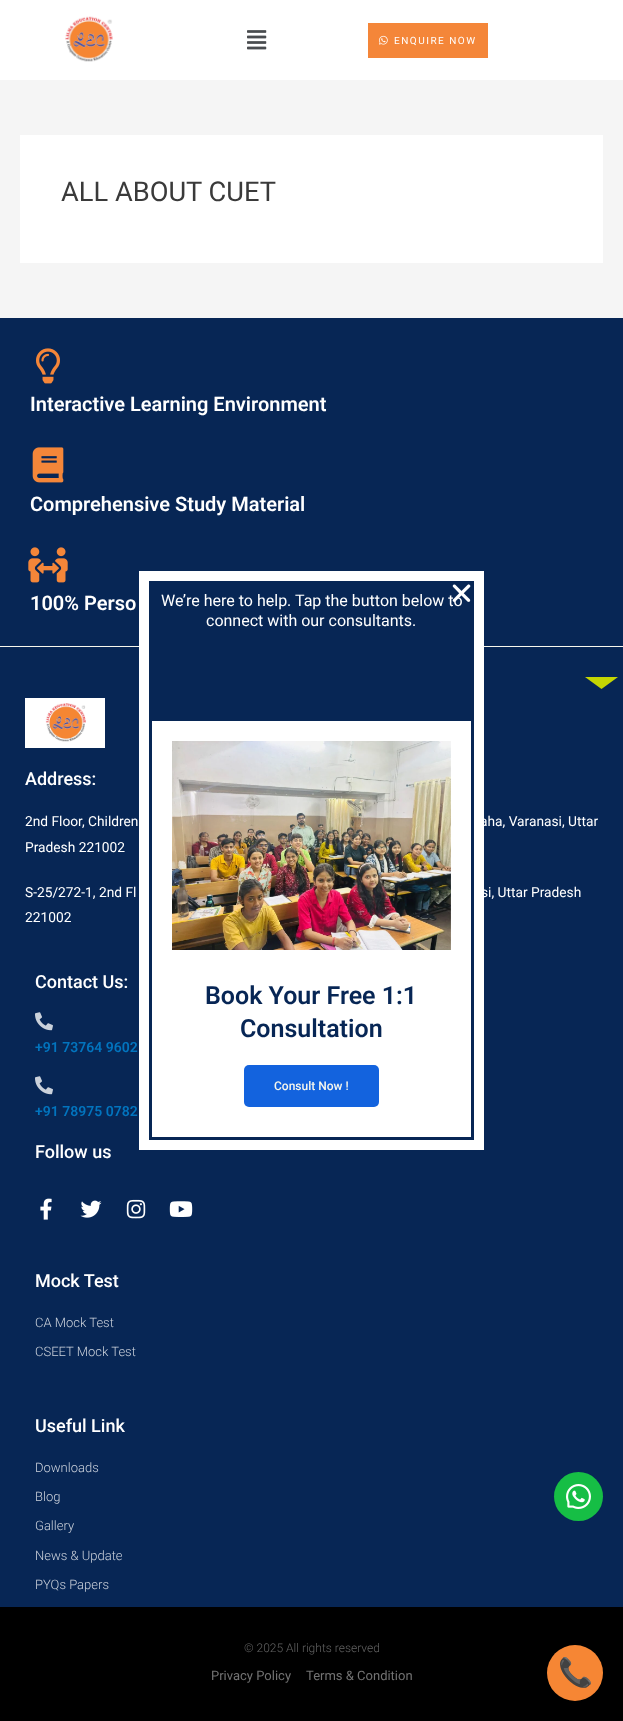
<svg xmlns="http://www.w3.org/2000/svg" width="623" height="1721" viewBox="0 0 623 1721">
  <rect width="100%" height="100%" fill="#f5f5f5"/>
  <rect x="0" y="0" width="623" height="80" fill="#ffffff"/>
  <image x="65" y="16" width="48" height="46" href="img1.png"/>
  <image x="247" y="30" width="20" height="20" href="img2.png"/>
  <rect x="368" y="23" width="120" height="35" fill="#f48639"/>
  <image x="379" y="35" width="9" height="10" href="img3.png"/>
  <text x="394" y="44" font-family="Roboto" font-size="10" letter-spacing="1.5" fill="#ffffff">ENQUIRE NOW</text>
  <rect x="20" y="135" width="583" height="128" fill="#ffffff"/>
  <text x="61" y="201" font-family="Roboto" font-size="27.25" fill="#3a3a3a">ALL ABOUT CUET</text>
  <rect x="0" y="318" width="623" height="328" fill="#072655"/>
  <image x="36" y="348" width="24" height="36" href="img4.png"/>
  <text x="30" y="411" font-family="Roboto" font-size="20" font-weight="600" fill="#ffffff">Interactive Learning Environment</text>
  <image x="32" y="447" width="32" height="36" href="img5.png"/>
  <text x="30" y="511" font-family="Roboto" font-size="20" font-weight="600" fill="#ffffff">Comprehensive Study Material</text>
  <image x="28" y="547" width="40" height="36" href="img6.png"/>
  <text x="30" y="610" font-family="Roboto" font-size="20" font-weight="600" fill="#ffffff">100% Perso</text>
  <rect x="0" y="647" width="623" height="960" fill="#072655"/>
  <rect x="0" y="646" width="623" height="1" fill="#f7f7ed"/>
  <path d="M601.5 689L585 677H618Z" fill="#c4d602"/>
  <image x="25" y="698" width="80" height="50" href="img7.png"/>
  <text x="25" y="785" font-family="Roboto" font-size="18" font-weight="500" fill="#ffffff">Address:</text>
  <text x="25" y="826" font-family="Roboto" font-size="13.75" fill="#ffffff">2nd Floor, Children</text>
  <text x="480" y="826" font-family="Roboto" font-size="13.75" fill="#ffffff">aha, Varanasi, Uttar</text>
  <text x="25" y="852" font-family="Roboto" font-size="13.75" fill="#ffffff">Pradesh 221002</text>
  <text x="25" y="897" font-family="Roboto" font-size="13.75" fill="#ffffff">S-25/272-1, 2nd Fl</text>
  <text x="481" y="897" font-family="Roboto" font-size="13.75" fill="#ffffff">si, Uttar Pradesh</text>
  <text x="25" y="922" font-family="Roboto" font-size="13.75" fill="#ffffff">221002</text>
  <text x="35" y="988" font-family="Roboto" font-size="18" font-weight="500" fill="#ffffff">Contact Us:</text>
  <image x="35" y="1012" width="18" height="19" href="img8.png"/>
  <text x="35" y="1052" font-family="Roboto" font-size="14" font-weight="600" fill="#0274be">+91 73764 9602</text>
  <image x="35" y="1076" width="18" height="19" href="img8.png"/>
  <text x="35" y="1116" font-family="Roboto" font-size="14" font-weight="600" fill="#0274be">+91 78975 0782</text>
  <text x="35" y="1158" font-family="Roboto" font-size="18" font-weight="500" fill="#ffffff">Follow us</text>
  <image x="40" y="1198" width="12" height="22" href="img9.png"/>
  <image x="80" y="1200" width="22" height="18" href="img10.png"/>
  <image x="126" y="1199" width="20" height="20" href="img11.png"/>
  <image x="169" y="1201" width="24" height="16" href="img12.png"/>
  <text x="35" y="1287" font-family="Roboto" font-size="18" font-weight="500" fill="#ffffff">Mock Test</text>
  <text x="35" y="1327" font-family="Roboto" font-size="13" font-weight="300" fill="#cbd1db">CA Mock Test</text>
  <text x="35" y="1356" font-family="Roboto" font-size="13" font-weight="300" fill="#cbd1db">CSEET Mock Test</text>
  <text x="35" y="1432" font-family="Roboto" font-size="18" font-weight="500" fill="#ffffff">Useful Link</text>
  <text x="35" y="1472" font-family="Roboto" font-size="13" font-weight="300" fill="#cbd1db">Downloads</text>
  <text x="35" y="1501" font-family="Roboto" font-size="13" font-weight="300" fill="#cbd1db">Blog</text>
  <text x="35" y="1530" font-family="Roboto" font-size="13" font-weight="300" fill="#cbd1db">Gallery</text>
  <text x="35" y="1560" font-family="Roboto" font-size="13" font-weight="300" fill="#cbd1db">News &amp; Update</text>
  <text x="35" y="1589" font-family="Roboto" font-size="13" font-weight="300" fill="#cbd1db">PYQs Papers</text>
  <rect x="0" y="1607" width="623" height="114" fill="#000000"/>
  <text x="244" y="1652" font-family="Roboto" font-size="12" font-weight="300" fill="#636363">© 2025 All rights reserved</text>
  <text x="211" y="1680" font-family="Roboto" font-size="13" fill="#737373">Privacy Policy</text>
  <text x="306" y="1680" font-family="Roboto" font-size="13" fill="#737373">Terms &amp; Condition</text>
  <rect x="139" y="571" width="345" height="579" fill="#ffffff"/>
  <rect x="149" y="581" width="325" height="137" fill="#072655"/>
  <text x="161" y="606" font-family="Roboto" font-size="16" fill="#ffffff">We’re here to help. Tap the button below to</text>
  <image x="452" y="584" width="19" height="18" href="img13.png"/>
  <text x="206" y="626" font-family="Roboto" font-size="16" fill="#ffffff">connect with our consultants.</text>
  <rect x="150.5" y="719.5" width="322" height="419" fill="none" stroke="#072655" stroke-width="3"/>
  <image x="172" y="741" width="279" height="209" href="img14.png"/>
  <text x="205" y="1004" font-family="Roboto" font-size="25" font-weight="600" fill="#072655">Book Your Free 1:1</text>
  <text x="240" y="1037" font-family="Roboto" font-size="25" font-weight="600" fill="#072655">Consultation</text>
  <rect x="244" y="1065" width="135" height="42" rx="5" fill="#1363de"/>
  <text x="274" y="1090" font-family="Roboto" font-size="12" font-weight="500" fill="#f7f7ed">Consult Now !</text>
  <circle cx="578.5" cy="1496.5" r="24.5" fill="#16be45"/>
  <image x="566" y="1484" width="25" height="25" href="img15.png"/>
  <circle cx="575" cy="1673" r="28" fill="#f68634"/>
  <text x="558" y="1682" font-family="Noto Color Emoji" font-size="28" fill="#ffffff">📞</text>
</svg>
